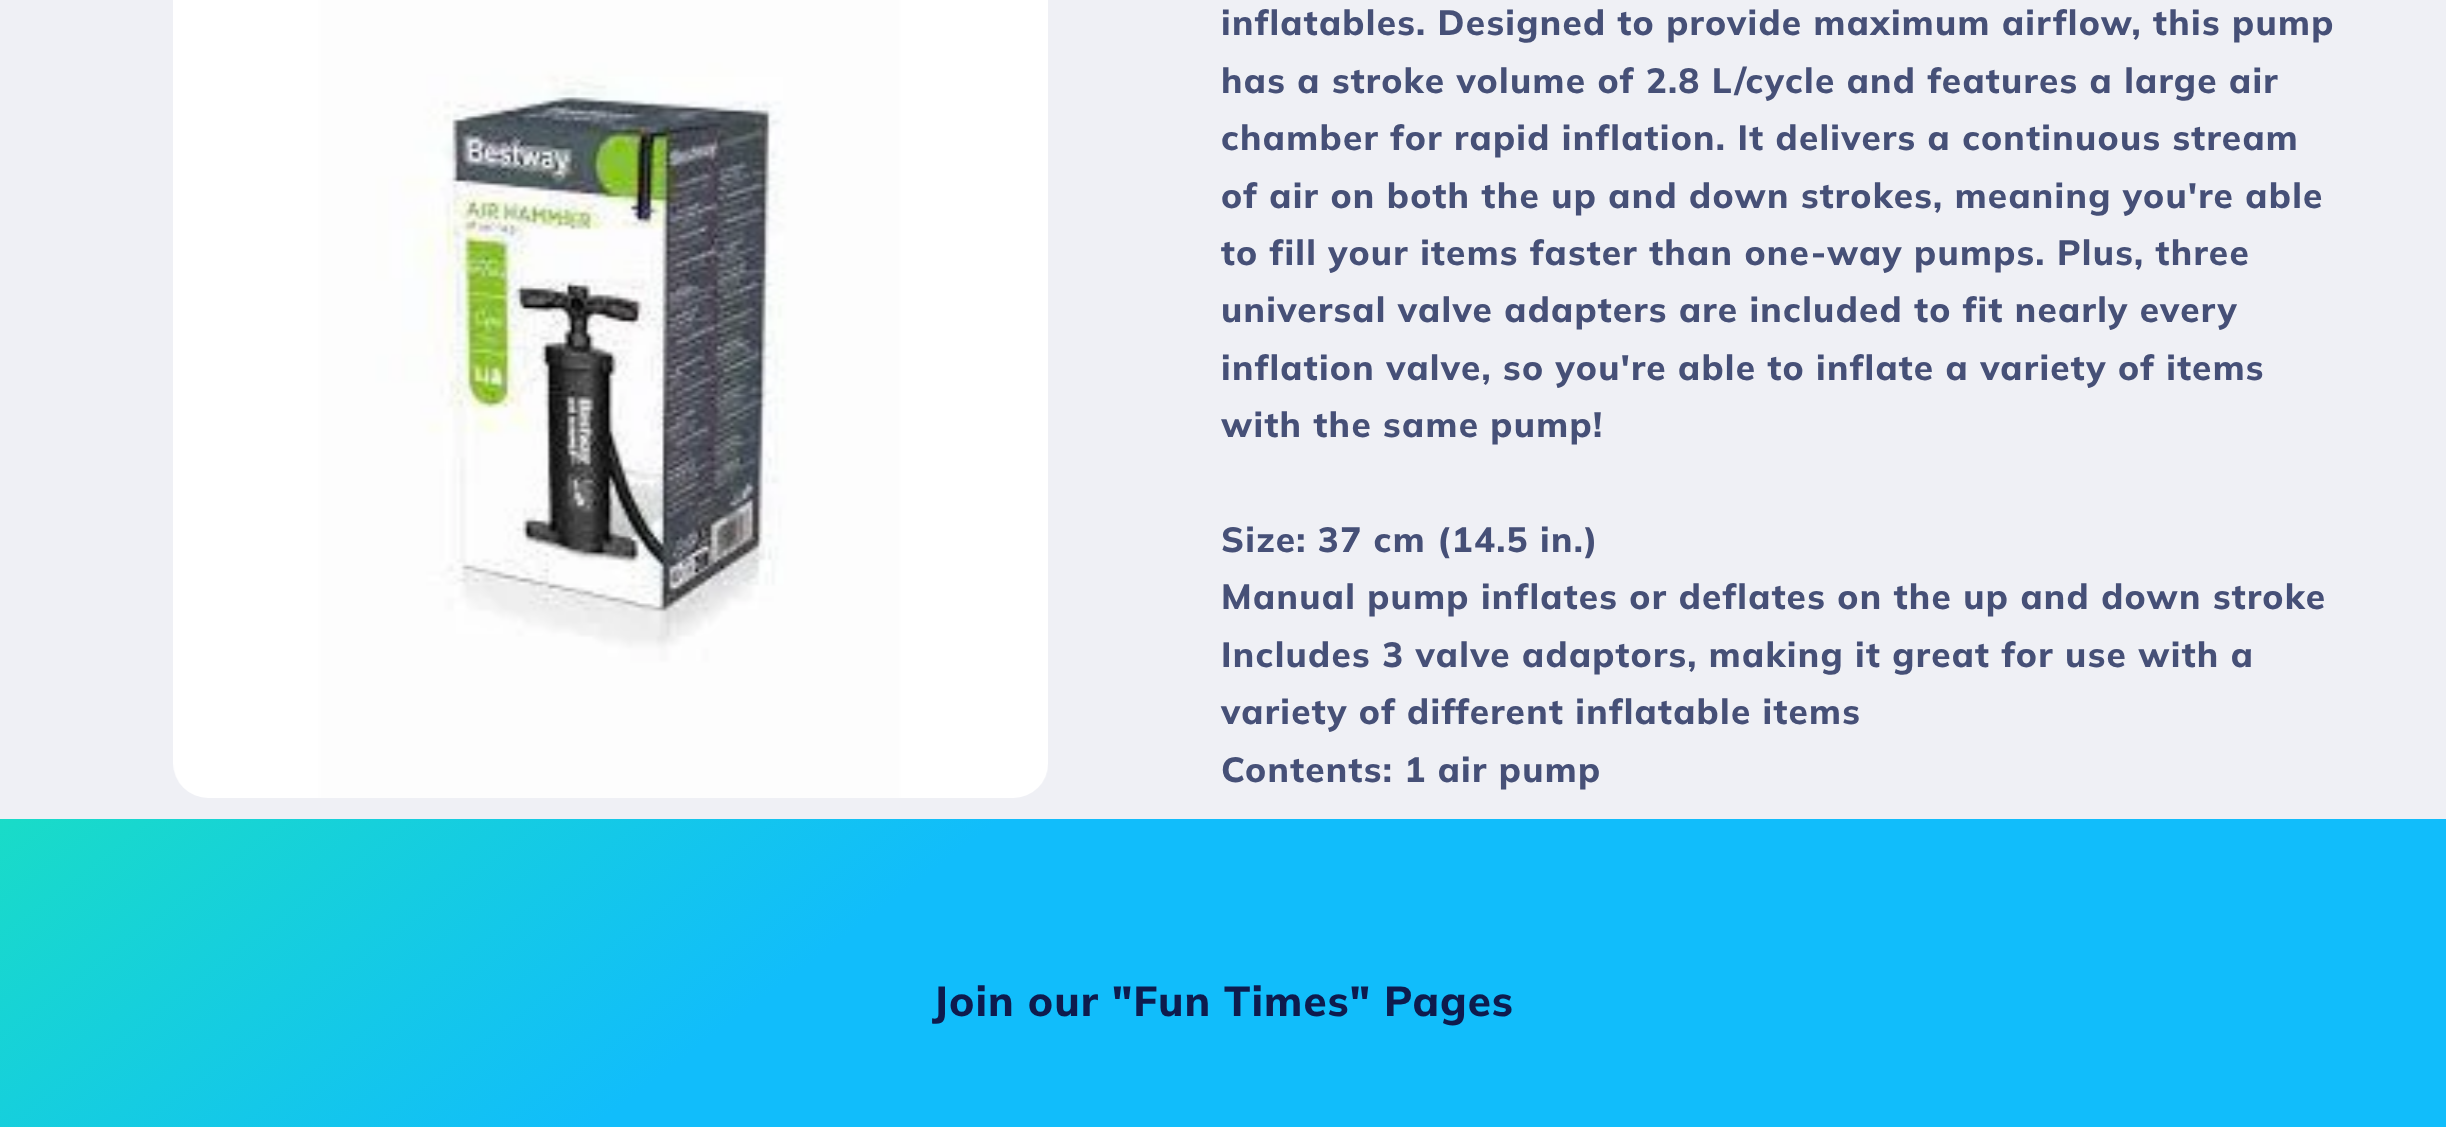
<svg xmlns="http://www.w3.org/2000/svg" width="2446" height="1127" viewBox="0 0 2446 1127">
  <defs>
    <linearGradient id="g1" gradientUnits="userSpaceOnUse" x1="1937" y1="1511" x2="509" y2="-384"><stop offset="0.47" stop-color="#11bdfb"/><stop offset="0.97" stop-color="#21f996"/></linearGradient>
  </defs>
  <rect width="100%" height="100%" fill="#eff0f5"/>
  <image x="173" y="0" width="875" height="798" href="img1.png"/>
  <text x="1221" y="35" font-family="Muli" font-size="35" font-weight="800" letter-spacing="1.3" fill="#465077">inflatables. Designed to provide maximum airflow, this pump</text>
  <text x="1221" y="93" font-family="Muli" font-size="35" font-weight="800" letter-spacing="1.3" fill="#465077">has a stroke volume of 2.8 L/cycle and features a large air</text>
  <text x="1221" y="150" font-family="Muli" font-size="35" font-weight="800" letter-spacing="1.3" fill="#465077">chamber for rapid inflation. It delivers a continuous stream</text>
  <text x="1221" y="208" font-family="Muli" font-size="35" font-weight="800" letter-spacing="1.3" fill="#465077">of air on both the up and down strokes, meaning you're able</text>
  <text x="1221" y="265" font-family="Muli" font-size="35" font-weight="800" letter-spacing="1.3" fill="#465077">to fill your items faster than one-way pumps. Plus, three</text>
  <text x="1221" y="322" font-family="Muli" font-size="35" font-weight="800" letter-spacing="1.3" fill="#465077">universal valve adapters are included to fit nearly every</text>
  <text x="1221" y="380" font-family="Muli" font-size="35" font-weight="800" letter-spacing="1.3" fill="#465077">inflation valve, so you're able to inflate a variety of items</text>
  <text x="1221" y="437" font-family="Muli" font-size="35" font-weight="800" letter-spacing="1.3" fill="#465077">with the same pump!</text>
  <text x="1221" y="552" font-family="Muli" font-size="35" font-weight="800" letter-spacing="1.3" fill="#465077">Size: 37 cm (14.5 in.)</text>
  <text x="1221" y="609" font-family="Muli" font-size="35" font-weight="800" letter-spacing="1.3" fill="#465077">Manual pump inflates or deflates on the up and down stroke</text>
  <text x="1221" y="667" font-family="Muli" font-size="35" font-weight="800" letter-spacing="1.3" fill="#465077">Includes 3 valve adaptors, making it great for use with a</text>
  <text x="1221" y="724" font-family="Muli" font-size="35" font-weight="800" letter-spacing="1.3" fill="#465077">variety of different inflatable items</text>
  <text x="1221" y="782" font-family="Muli" font-size="35" font-weight="800" letter-spacing="1.3" fill="#465077">Contents: 1 air pump</text>
  <rect x="0" y="819" width="2446" height="105" fill="url(#g1)"/>
  <rect x="0" y="924" width="2446" height="203" fill="url(#g1)"/>
  <text x="932" y="1016" font-family="Muli" font-size="42" font-weight="800" letter-spacing="1.05" fill="#0e1b4d">Join our "Fun Times" Pages</text>
</svg>
